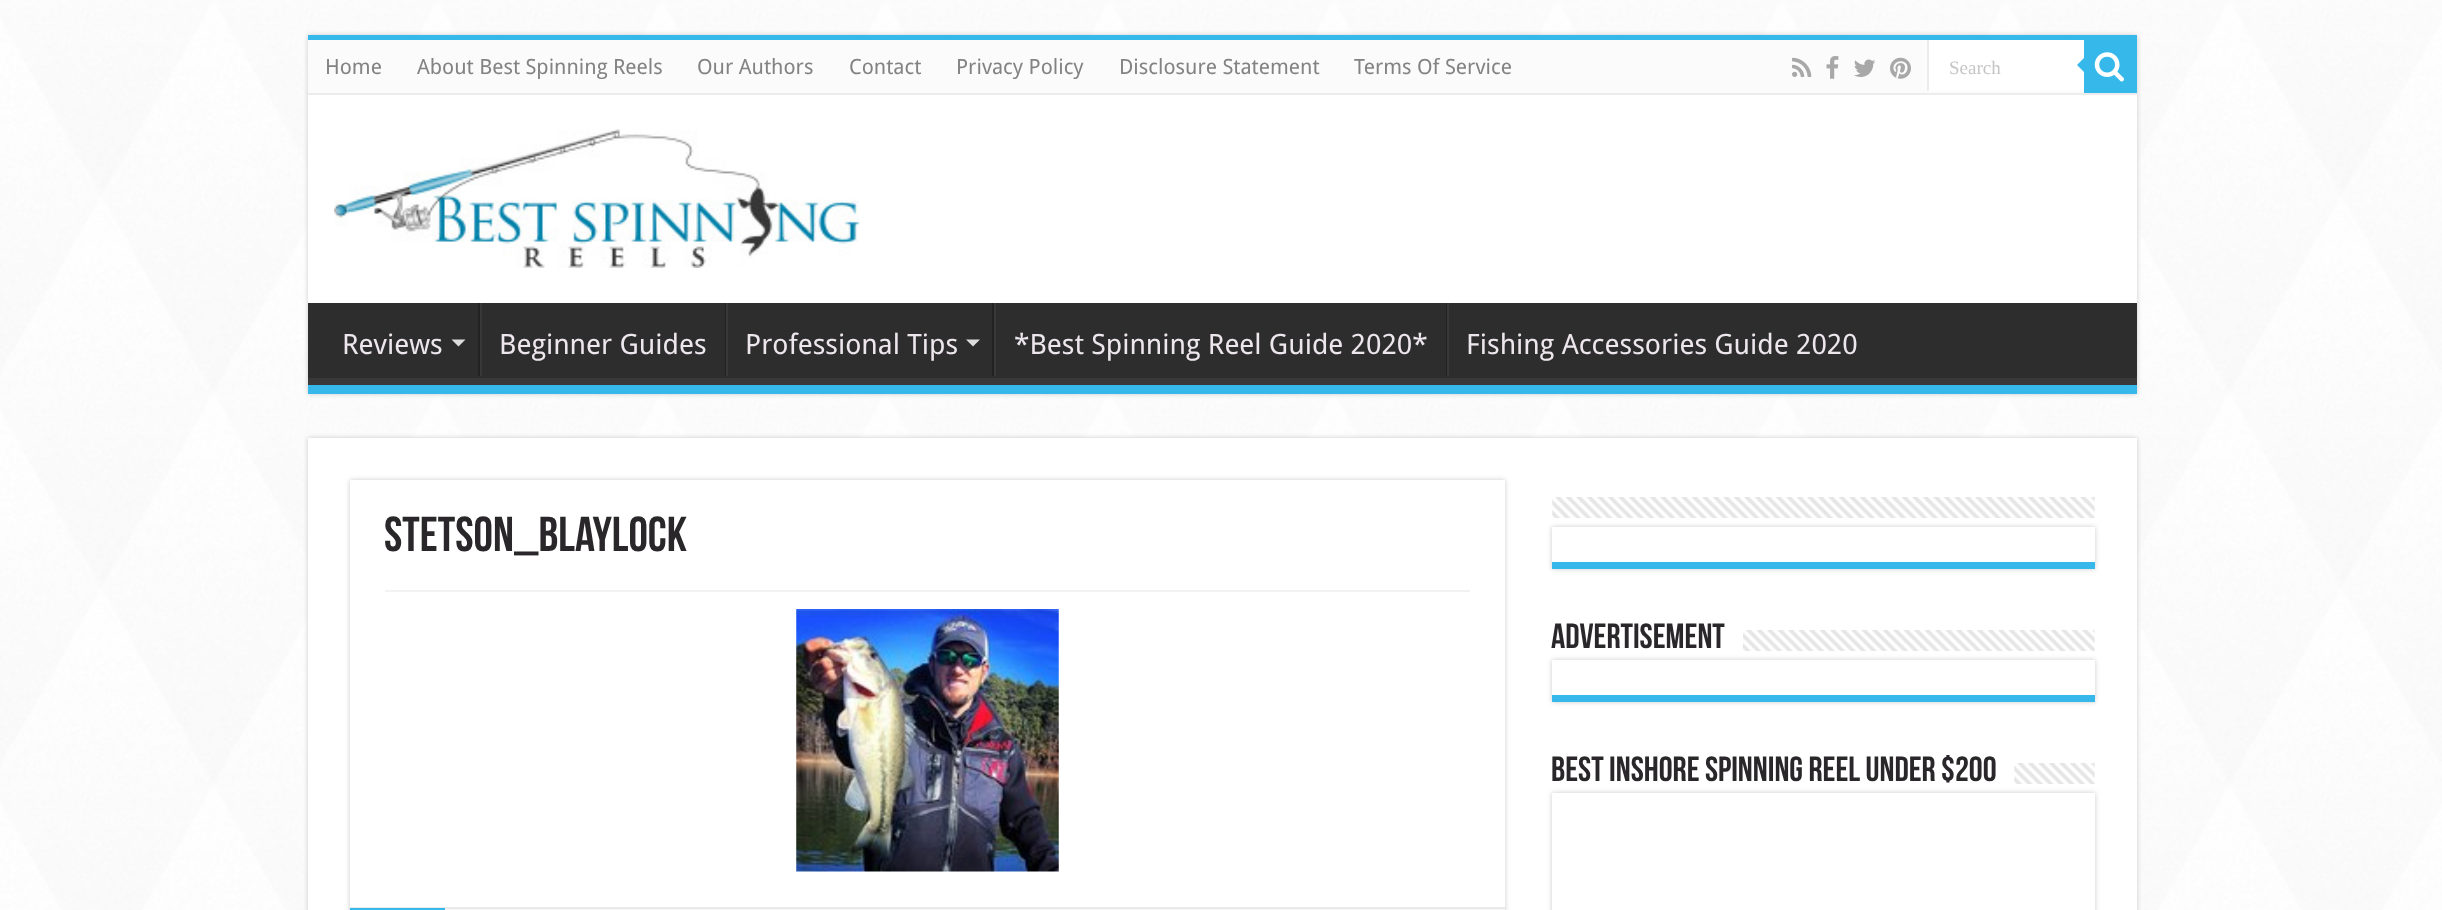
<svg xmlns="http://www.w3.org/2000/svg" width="2442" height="910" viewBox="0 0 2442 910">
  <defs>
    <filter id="blur1" x="-50%" y="-200%" width="200%" height="500%"><feGaussianBlur stdDeviation="2.5"/></filter>
    <clipPath id="clip1"><rect x="1950" y="56" width="113" height="21"/></clipPath>
    <clipPath id="clip2"><rect x="308" y="303" width="1829" height="82"/></clipPath>
    <clipPath id="clip3"><path d="M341 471H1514V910H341ZM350 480H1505V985H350Z" clip-rule="evenodd"/></clipPath>
  </defs>
  <rect width="100%" height="100%" fill="#ffffff"/>
  <image x="0" y="0" width="2442" height="910" href="img1.png"/>
  <rect x="308" y="35" width="1829" height="359" fill="#cacaca" filter="url(#blur1)"/>
  <rect x="308" y="95" width="1829" height="208" fill="#ffffff"/>
  <rect x="308" y="35" width="1829" height="5" fill="#37b8eb"/>
  <rect x="308" y="40" width="1776" height="53" fill="#fbfbfb"/>
  <rect x="308" y="93" width="1829" height="2" fill="#ececec"/>
  <text x="325" y="74" font-family="Droid Sans" font-size="21" fill="#838383">Home</text>
  <text x="417" y="74" font-family="Droid Sans" font-size="21" fill="#838383">About Best Spinning Reels</text>
  <text x="697" y="74" font-family="Droid Sans" font-size="21" fill="#838383">Our Authors</text>
  <text x="849" y="74" font-family="Droid Sans" font-size="21" fill="#838383">Contact</text>
  <text x="956" y="74" font-family="Droid Sans" font-size="21" fill="#838383">Privacy Policy</text>
  <text x="1119" y="74" font-family="Droid Sans" font-size="21" fill="#838383">Disclosure Statement</text>
  <text x="1354" y="74" font-family="Droid Sans" font-size="21" fill="#838383">Terms Of Service</text>
  <image x="1792" y="57" width="20" height="20" href="img2.png"/>
  <image x="1826" y="56" width="13" height="23" href="img3.png"/>
  <image x="1854" y="59" width="22" height="18" href="img4.png"/>
  <image x="1890" y="57" width="21" height="22" href="img5.png"/>
  <rect x="1929" y="40" width="155" height="51" fill="#ffffff"/>
  <rect x="1927" y="40" width="2" height="51" fill="#ececec"/>
  <g clip-path="url(#clip1)">
    <text x="1949" y="74" font-family="Liberation Serif" font-size="19" fill="#c5c5c5">Search</text>
  </g>
  <rect x="2084" y="40" width="53" height="53" fill="#37b8eb"/>
  <image x="2094" y="52" width="30" height="30" href="img6.png"/>
  <path d="M2084 58V72L2077 65Z" fill="#37b8eb"/>
  <image x="334" y="129" width="526" height="139" href="img7.png"/>
  <rect x="308" y="303" width="1829" height="75" fill="#2d2d2d"/>
  <g clip-path="url(#clip2)">
    <path d="M135 130H2310V558H135ZM306 292H2135C2136 292 2137 293 2137 294V376C2137 377 2136 378 2135 378H306C305 378 304 377 304 376V294C304 293 305 292 306 292Z" fill="#393939" fill-rule="evenodd"/>
  </g>
  <rect x="308" y="385" width="1829" height="9" fill="#37b8eb"/>
  <text x="342" y="354" font-family="Droid Sans" font-size="28" fill="#ede6ed">Reviews</text>
  <path d="M451.5 339.5H465.5L458.5 346.5Z" fill="#dddddd"/>
  <rect x="478" y="303" width="2" height="73" fill="#222222"/>
  <rect x="480" y="303" width="2" height="73" fill="#383838"/>
  <text x="499" y="354" font-family="Droid Sans" font-size="28" fill="#ede6ed">Beginner Guides</text>
  <rect x="725" y="303" width="1" height="73" fill="#222222"/>
  <rect x="726" y="303" width="2" height="73" fill="#383838"/>
  <text x="745" y="354" font-family="Droid Sans" font-size="28" fill="#ede6ed">Professional Tips</text>
  <path d="M966 339.5H980L973 346.5Z" fill="#dddddd"/>
  <rect x="992" y="303" width="2" height="73" fill="#222222"/>
  <rect x="994" y="303" width="2" height="73" fill="#383838"/>
  <text x="1014" y="354" font-family="Droid Sans" font-size="28" fill="#ede6ed">*Best Spinning Reel Guide 2020*</text>
  <rect x="1446" y="303" width="1" height="73" fill="#222222"/>
  <rect x="1447" y="303" width="2" height="73" fill="#383838"/>
  <text x="1466" y="354" font-family="Droid Sans" font-size="28" fill="#ede6ed">Fishing Accessories Guide 2020</text>
  <rect x="308" y="438" width="1829" height="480" fill="#cacaca" filter="url(#blur1)"/>
  <rect x="308" y="438" width="1829" height="472" fill="#ffffff"/>
  <g clip-path="url(#clip3)">
    <rect x="350" y="480" width="1155" height="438" fill="#cacaca" filter="url(#blur1)"/>
  </g>
  <text x="384" y="551" font-family="Bebas Neue" font-size="49" font-weight="bold" fill="#292729">stetson_blaylock</text>
  <rect x="385" y="590" width="1085" height="2" fill="#f2f2f2"/>
  <image x="796" y="609" width="263" height="263" href="img8.png"/>
  <rect x="445" y="909" width="1060" height="1" fill="#f7f7f7"/>
  <rect x="350" y="907" width="1155" height="2" fill="#eaeaea"/>
  <rect x="350" y="908" width="95" height="2" fill="#37b8eb"/>
  <image x="1552" y="497" width="543" height="21" href="img9.png"/>
  <rect x="1552" y="527" width="543" height="42" fill="#cacaca" filter="url(#blur1)"/>
  <rect x="1552" y="527" width="543" height="35" fill="#ffffff"/>
  <rect x="1552" y="562" width="543" height="7" fill="#37b8eb"/>
  <text x="1551" y="648" font-family="Bebas Neue" font-size="35" font-weight="bold" fill="#292729">Advertisement</text>
  <image x="1743" y="630" width="352" height="21" href="img10.png"/>
  <rect x="1552" y="660" width="543" height="42" fill="#cacaca" filter="url(#blur1)"/>
  <rect x="1552" y="660" width="543" height="35" fill="#ffffff"/>
  <rect x="1552" y="695" width="543" height="7" fill="#37b8eb"/>
  <text x="1551" y="781" font-family="Bebas Neue" font-size="35" font-weight="bold" fill="#292729">Best Inshore Spinning Reel Under $200</text>
  <image x="2014" y="763" width="81" height="21" href="img11.png"/>
  <rect x="1552" y="793" width="543" height="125" fill="#cacaca" filter="url(#blur1)"/>
  <rect x="1552" y="793" width="543" height="117" fill="#ffffff"/>
</svg>
